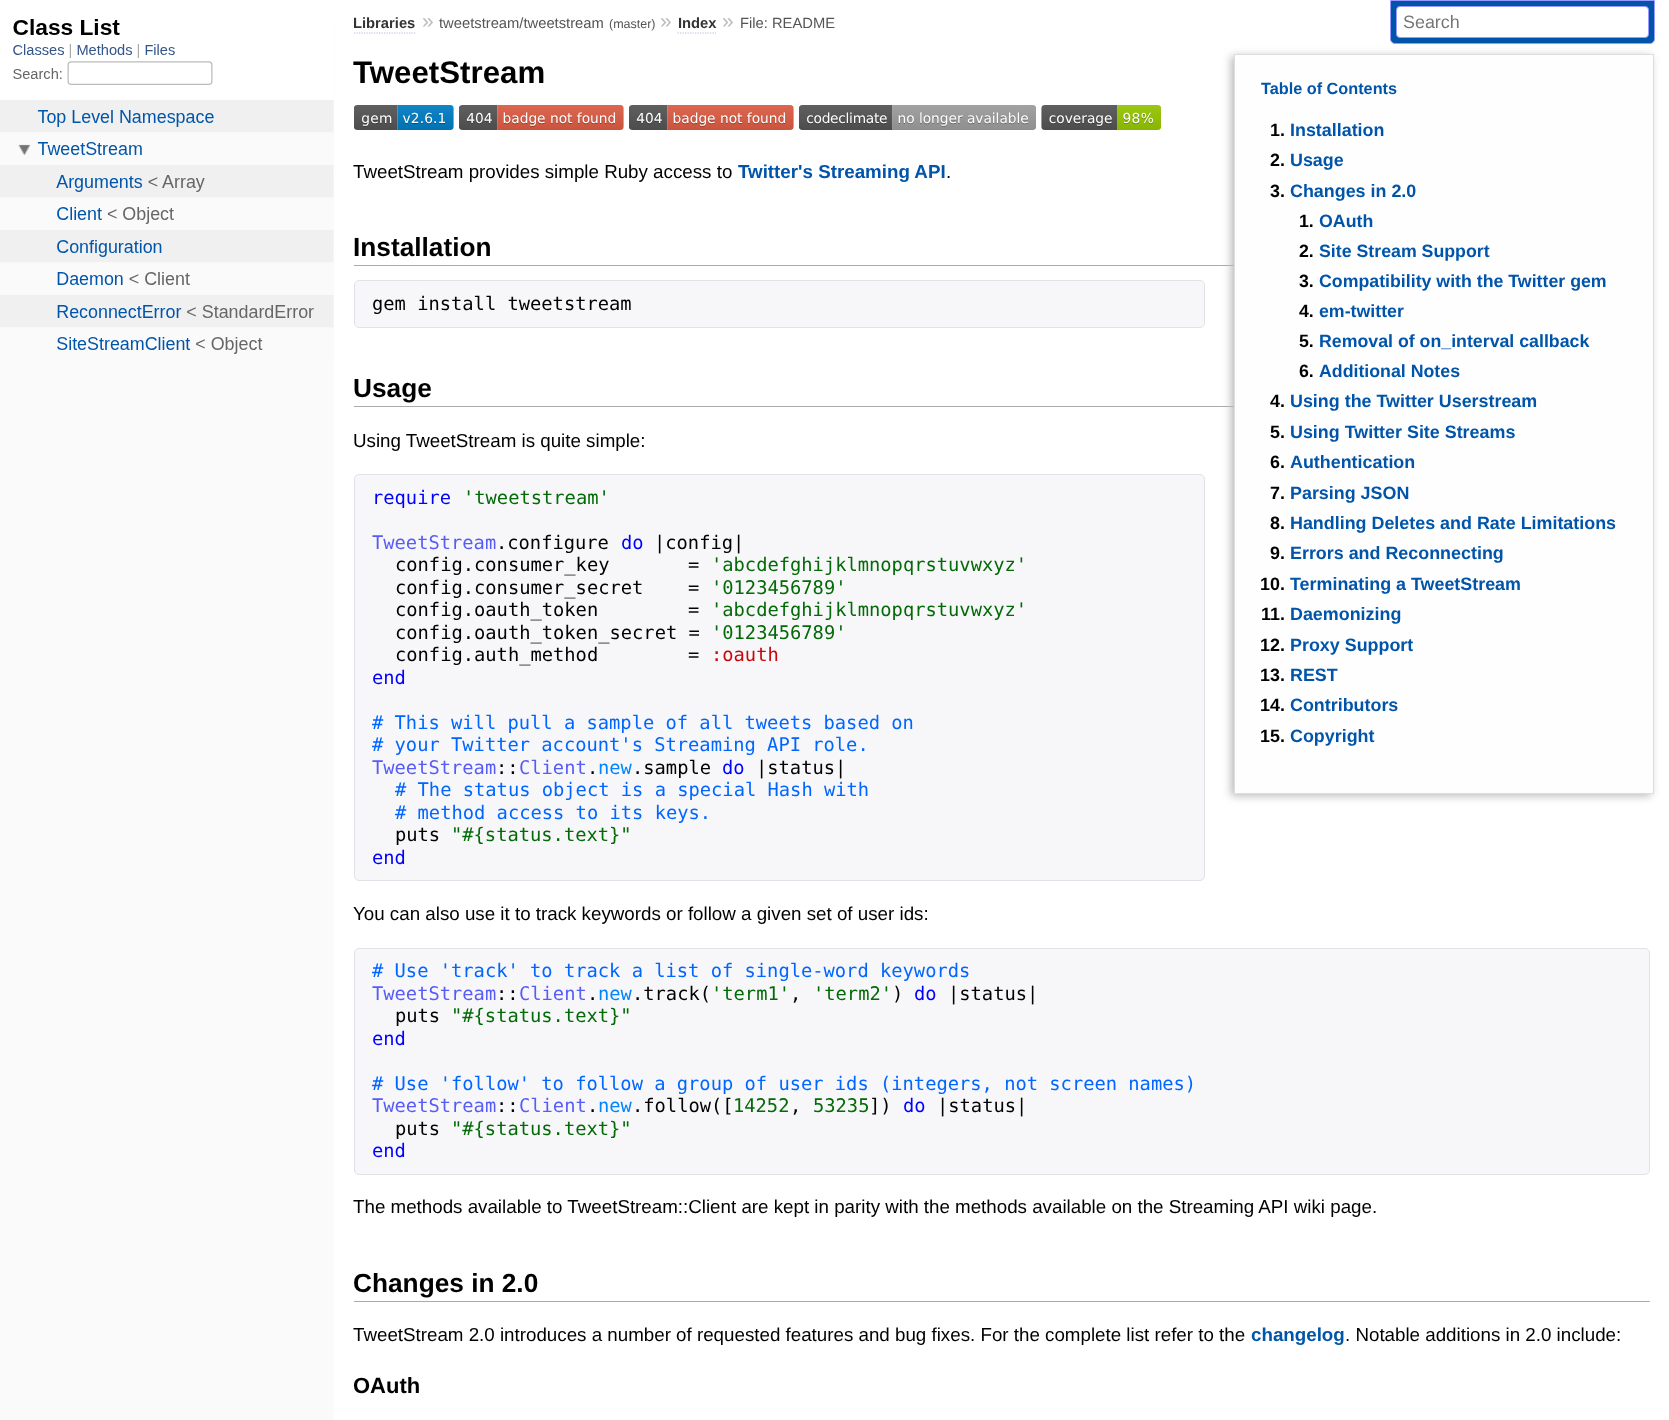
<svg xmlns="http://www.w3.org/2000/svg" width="1669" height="1420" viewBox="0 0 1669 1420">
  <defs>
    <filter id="blur1" x="-50%" y="-200%" width="200%" height="500%"><feGaussianBlur stdDeviation="4"/></filter>
  </defs>
  <rect width="100%" height="100%" fill="#ffffff"/>
  <path d="M334.5 0V1420" fill="none" stroke="#eeeeee" stroke-width="1.2" stroke-dasharray="1.25 1.25"/>
  <image x="0" y="19" width="334" height="1401" href="img1.png"/>
  <rect x="334" y="0" width="1" height="1419" fill="#ffffff"/>
  <text x="353" y="28" font-family="Liberation Sans" font-size="14.75" font-weight="bold" fill="#333333">Libraries</text>
  <path d="M354 33H416" fill="none" stroke="#bbbbdd" stroke-width="1.2" stroke-dasharray="1.25 1.25"/>
  <text x="422" y="28" font-family="Liberation Sans" font-size="21" fill="#bbbbbb">»</text>
  <text x="439" y="28" font-family="Liberation Sans" font-size="14.75" fill="#555555">tweetstream/tweetstream</text>
  <text x="609" y="28" font-family="Liberation Sans" font-size="12.5" fill="#555555">(master)</text>
  <text x="660" y="28" font-family="Liberation Sans" font-size="21" fill="#bbbbbb">»</text>
  <text x="678" y="28" font-family="Liberation Sans" font-size="14.75" font-weight="bold" fill="#333333">Index</text>
  <path d="M677.5 33H716" fill="none" stroke="#bbbbdd" stroke-width="1.2" stroke-dasharray="1.25 1.25"/>
  <text x="722" y="28" font-family="Liberation Sans" font-size="21" fill="#bbbbbb">»</text>
  <text x="740" y="28" font-family="Liberation Sans" font-size="14.75" fill="#555555">File: README</text>
  <rect x="354" y="265" width="880" height="1" fill="#aaaaaa"/>
  <rect x="354" y="406" width="880" height="1" fill="#aaaaaa"/>
  <rect x="1231" y="56" width="420" height="740" fill="#bbbbbb" filter="url(#blur1)"/>
  <path d="M1390.5 .5H1654.5V39C1654.5 41.5 1652.5 43.5 1650 43.5H1395C1392.5 43.5 1390.5 41.5 1390.5 39Z" fill="#0055aa" stroke="#9999ff"/>
  <rect x="1396.5" y="6.5" width="252" height="31" rx="3.5" fill="#ffffff" stroke="#9999ff"/>
  <text x="1403" y="28" font-family="Liberation Sans" font-size="17.9" fill="#757575">Search</text>
  <text x="353" y="83" font-family="Liberation Sans" font-size="31.25" font-weight="bold" fill="#000000">TweetStream</text>
  <image x="354" y="105" width="100" height="25" href="img2.png"/>
  <image x="459" y="105" width="165" height="25" href="img3.png"/>
  <image x="629" y="105" width="165" height="25" href="img4.png"/>
  <image x="799" y="105" width="237" height="25" href="img5.png"/>
  <image x="1041" y="105" width="120" height="25" href="img6.png"/>
  <text x="353" y="178" font-family="Liberation Sans" font-size="18.75" fill="#000000">TweetStream provides simple Ruby access to</text>
  <text x="738" y="178" font-family="Liberation Sans" font-size="18.75" font-weight="bold" fill="#0055aa">Twitter's Streaming API</text>
  <text x="946" y="178" font-family="Liberation Sans" font-size="18.75" fill="#000000">.</text>
  <text x="353" y="256" font-family="Liberation Sans" font-size="26.25" font-weight="bold" fill="#000000">Installation</text>
  <rect x="354.5" y="280.5" width="850" height="47" rx="4.5" fill="#f7f7f9" stroke="#e1e1e8"/>
  <text x="372" y="310" font-family="DejaVu Sans Mono" font-size="18.75" fill="#000000">gem install tweetstream</text>
  <text x="353" y="397" font-family="Liberation Sans" font-size="26.25" font-weight="bold" fill="#000000">Usage</text>
  <text x="353" y="447" font-family="Liberation Sans" font-size="18.75" fill="#000000">Using TweetStream is quite simple:</text>
  <rect x="354.5" y="474.5" width="850" height="406" rx="4.5" fill="#f7f7f9" stroke="#e1e1e8"/>
  <text x="372" y="504" font-family="DejaVu Sans Mono" font-size="18.75" fill="#0000ff">require</text>
  <text x="463" y="504" font-family="DejaVu Sans Mono" font-size="18.75" fill="#036a07">'tweetstream'</text>
  <text x="372" y="549" font-family="DejaVu Sans Mono" font-size="18.75" fill="#585cf6">TweetStream</text>
  <text x="496" y="549" font-family="DejaVu Sans Mono" font-size="18.75" fill="#000000">.configure</text>
  <text x="621" y="549" font-family="DejaVu Sans Mono" font-size="18.75" fill="#0000ff">do</text>
  <text x="654" y="549" font-family="DejaVu Sans Mono" font-size="18.75" fill="#000000">|config|</text>
  <text x="395" y="571" font-family="DejaVu Sans Mono" font-size="18.75" fill="#000000">config.consumer_key</text>
  <text x="688" y="571" font-family="DejaVu Sans Mono" font-size="18.75" fill="#000000">=</text>
  <text x="711" y="571" font-family="DejaVu Sans Mono" font-size="18.75" fill="#036a07">'abcdefghijklmnopqrstuvwxyz'</text>
  <text x="395" y="594" font-family="DejaVu Sans Mono" font-size="18.75" fill="#000000">config.consumer_secret</text>
  <text x="688" y="594" font-family="DejaVu Sans Mono" font-size="18.75" fill="#000000">=</text>
  <text x="711" y="594" font-family="DejaVu Sans Mono" font-size="18.75" fill="#036a07">'0123456789'</text>
  <text x="395" y="616" font-family="DejaVu Sans Mono" font-size="18.75" fill="#000000">config.oauth_token</text>
  <text x="688" y="616" font-family="DejaVu Sans Mono" font-size="18.75" fill="#000000">=</text>
  <text x="711" y="616" font-family="DejaVu Sans Mono" font-size="18.75" fill="#036a07">'abcdefghijklmnopqrstuvwxyz'</text>
  <text x="395" y="639" font-family="DejaVu Sans Mono" font-size="18.75" fill="#000000">config.oauth_token_secret =</text>
  <text x="711" y="639" font-family="DejaVu Sans Mono" font-size="18.75" fill="#036a07">'0123456789'</text>
  <text x="395" y="661" font-family="DejaVu Sans Mono" font-size="18.75" fill="#000000">config.auth_method</text>
  <text x="688" y="661" font-family="DejaVu Sans Mono" font-size="18.75" fill="#000000">=</text>
  <text x="711" y="661" font-family="DejaVu Sans Mono" font-size="18.75" fill="#c5060b">:oauth</text>
  <text x="372" y="684" font-family="DejaVu Sans Mono" font-size="18.75" fill="#0000ff">end</text>
  <text x="372" y="729" font-family="DejaVu Sans Mono" font-size="18.75" fill="#0066ff"># This will pull a sample of all tweets based on</text>
  <text x="372" y="751" font-family="DejaVu Sans Mono" font-size="18.75" fill="#0066ff"># your Twitter account's Streaming API role.</text>
  <text x="372" y="774" font-family="DejaVu Sans Mono" font-size="18.75" fill="#585cf6">TweetStream</text>
  <text x="496" y="774" font-family="DejaVu Sans Mono" font-size="18.75" fill="#000000">::</text>
  <text x="519" y="774" font-family="DejaVu Sans Mono" font-size="18.75" fill="#585cf6">Client</text>
  <text x="587" y="774" font-family="DejaVu Sans Mono" font-size="18.75" fill="#000000">.</text>
  <text x="598" y="774" font-family="DejaVu Sans Mono" font-size="18.75" fill="#0085ff">new</text>
  <text x="632" y="774" font-family="DejaVu Sans Mono" font-size="18.75" fill="#000000">.sample</text>
  <text x="722" y="774" font-family="DejaVu Sans Mono" font-size="18.75" fill="#0000ff">do</text>
  <text x="756" y="774" font-family="DejaVu Sans Mono" font-size="18.75" fill="#000000">|status|</text>
  <text x="395" y="796" font-family="DejaVu Sans Mono" font-size="18.75" fill="#0066ff"># The status object is a special Hash with</text>
  <text x="395" y="819" font-family="DejaVu Sans Mono" font-size="18.75" fill="#0066ff"># method access to its keys.</text>
  <text x="395" y="841" font-family="DejaVu Sans Mono" font-size="18.75" fill="#000000">puts</text>
  <text x="451" y="841" font-family="DejaVu Sans Mono" font-size="18.75" fill="#036a07">"#{status.text}"</text>
  <text x="372" y="864" font-family="DejaVu Sans Mono" font-size="18.75" fill="#0000ff">end</text>
  <text x="353" y="920" font-family="Liberation Sans" font-size="18.75" fill="#000000">You can also use it to track keywords or follow a given set of user ids:</text>
  <rect x="354.5" y="948.5" width="1295" height="226" rx="4.5" fill="#f7f7f9" stroke="#e1e1e8"/>
  <text x="372" y="977" font-family="DejaVu Sans Mono" font-size="18.75" fill="#0066ff"># Use 'track' to track a list of single-word keywords</text>
  <text x="372" y="1000" font-family="DejaVu Sans Mono" font-size="18.75" fill="#585cf6">TweetStream</text>
  <text x="496" y="1000" font-family="DejaVu Sans Mono" font-size="18.75" fill="#000000">::</text>
  <text x="519" y="1000" font-family="DejaVu Sans Mono" font-size="18.75" fill="#585cf6">Client</text>
  <text x="587" y="1000" font-family="DejaVu Sans Mono" font-size="18.75" fill="#000000">.</text>
  <text x="598" y="1000" font-family="DejaVu Sans Mono" font-size="18.75" fill="#0085ff">new</text>
  <text x="632" y="1000" font-family="DejaVu Sans Mono" font-size="18.75" fill="#000000">.track(</text>
  <text x="711" y="1000" font-family="DejaVu Sans Mono" font-size="18.75" fill="#036a07">'term1'</text>
  <text x="790" y="1000" font-family="DejaVu Sans Mono" font-size="18.75" fill="#000000">,</text>
  <text x="813" y="1000" font-family="DejaVu Sans Mono" font-size="18.75" fill="#036a07">'term2'</text>
  <text x="892" y="1000" font-family="DejaVu Sans Mono" font-size="18.75" fill="#000000">)</text>
  <text x="914" y="1000" font-family="DejaVu Sans Mono" font-size="18.75" fill="#0000ff">do</text>
  <text x="948" y="1000" font-family="DejaVu Sans Mono" font-size="18.75" fill="#000000">|status|</text>
  <text x="395" y="1022" font-family="DejaVu Sans Mono" font-size="18.75" fill="#000000">puts</text>
  <text x="451" y="1022" font-family="DejaVu Sans Mono" font-size="18.75" fill="#036a07">"#{status.text}"</text>
  <text x="372" y="1045" font-family="DejaVu Sans Mono" font-size="18.75" fill="#0000ff">end</text>
  <text x="372" y="1090" font-family="DejaVu Sans Mono" font-size="18.75" fill="#0066ff"># Use 'follow' to follow a group of user ids (integers, not screen names)</text>
  <text x="372" y="1112" font-family="DejaVu Sans Mono" font-size="18.75" fill="#585cf6">TweetStream</text>
  <text x="496" y="1112" font-family="DejaVu Sans Mono" font-size="18.75" fill="#000000">::</text>
  <text x="519" y="1112" font-family="DejaVu Sans Mono" font-size="18.75" fill="#585cf6">Client</text>
  <text x="587" y="1112" font-family="DejaVu Sans Mono" font-size="18.75" fill="#000000">.</text>
  <text x="598" y="1112" font-family="DejaVu Sans Mono" font-size="18.75" fill="#0085ff">new</text>
  <text x="632" y="1112" font-family="DejaVu Sans Mono" font-size="18.75" fill="#000000">.follow([</text>
  <text x="733" y="1112" font-family="DejaVu Sans Mono" font-size="18.75" fill="#036a07">14252</text>
  <text x="790" y="1112" font-family="DejaVu Sans Mono" font-size="18.75" fill="#000000">,</text>
  <text x="813" y="1112" font-family="DejaVu Sans Mono" font-size="18.75" fill="#036a07">53235</text>
  <text x="869" y="1112" font-family="DejaVu Sans Mono" font-size="18.75" fill="#000000">])</text>
  <text x="903" y="1112" font-family="DejaVu Sans Mono" font-size="18.75" fill="#0000ff">do</text>
  <text x="937" y="1112" font-family="DejaVu Sans Mono" font-size="18.75" fill="#000000">|status|</text>
  <text x="395" y="1135" font-family="DejaVu Sans Mono" font-size="18.75" fill="#000000">puts</text>
  <text x="451" y="1135" font-family="DejaVu Sans Mono" font-size="18.75" fill="#036a07">"#{status.text}"</text>
  <text x="372" y="1157" font-family="DejaVu Sans Mono" font-size="18.75" fill="#0000ff">end</text>
  <text x="353" y="1213" font-family="Liberation Sans" font-size="18.75" fill="#000000">The methods available to TweetStream::Client are kept in parity with the methods available on the Streaming API wiki page.</text>
  <rect x="354" y="1301" width="1296" height="1" fill="#aaaaaa"/>
  <text x="353" y="1292" font-family="Liberation Sans" font-size="26.25" font-weight="bold" fill="#000000">Changes in 2.0</text>
  <text x="353" y="1341" font-family="Liberation Sans" font-size="18.75" fill="#000000">TweetStream 2.0 introduces a number of requested features and bug fixes. For the complete list refer to the</text>
  <text x="1251" y="1341" font-family="Liberation Sans" font-size="18.75" font-weight="bold" fill="#0055aa">changelog</text>
  <text x="1345" y="1341" font-family="Liberation Sans" font-size="18.75" fill="#000000">. Notable additions in 2.0 include:</text>
  <text x="353" y="1393" font-family="Liberation Sans" font-size="22" font-weight="bold" fill="#000000">OAuth</text>
  <rect x="1234.5" y="54.5" width="419" height="739" fill="#fefefe" stroke="#dddddd"/>
  <text x="1261" y="94" font-family="Liberation Sans" font-size="16.25" font-weight="bold" fill="#0055aa">Table of Contents</text>
  <text x="1270" y="136" font-family="Liberation Sans" font-size="17.9" font-weight="bold" fill="#000000">1.</text>
  <text x="1290" y="136" font-family="Liberation Sans" font-size="17.9" font-weight="bold" fill="#0055aa">Installation</text>
  <text x="1270" y="166" font-family="Liberation Sans" font-size="17.9" font-weight="bold" fill="#000000">2.</text>
  <text x="1290" y="166" font-family="Liberation Sans" font-size="17.9" font-weight="bold" fill="#0055aa">Usage</text>
  <text x="1270" y="197" font-family="Liberation Sans" font-size="17.9" font-weight="bold" fill="#000000">3.</text>
  <text x="1290" y="197" font-family="Liberation Sans" font-size="17.9" font-weight="bold" fill="#0055aa">Changes in 2.0</text>
  <text x="1299" y="227" font-family="Liberation Sans" font-size="17.75" font-weight="bold" fill="#000000">1.</text>
  <text x="1319" y="227" font-family="Liberation Sans" font-size="17.75" font-weight="bold" fill="#0055aa">OAuth</text>
  <text x="1299" y="257" font-family="Liberation Sans" font-size="17.75" font-weight="bold" fill="#000000">2.</text>
  <text x="1319" y="257" font-family="Liberation Sans" font-size="17.75" font-weight="bold" fill="#0055aa">Site Stream Support</text>
  <text x="1299" y="287" font-family="Liberation Sans" font-size="17.75" font-weight="bold" fill="#000000">3.</text>
  <text x="1319" y="287" font-family="Liberation Sans" font-size="17.75" font-weight="bold" fill="#0055aa">Compatibility with the Twitter gem</text>
  <text x="1299" y="317" font-family="Liberation Sans" font-size="17.75" font-weight="bold" fill="#000000">4.</text>
  <text x="1319" y="317" font-family="Liberation Sans" font-size="17.75" font-weight="bold" fill="#0055aa">em-twitter</text>
  <text x="1299" y="347" font-family="Liberation Sans" font-size="17.75" font-weight="bold" fill="#000000">5.</text>
  <text x="1319" y="347" font-family="Liberation Sans" font-size="17.75" font-weight="bold" fill="#0055aa">Removal of on_interval callback</text>
  <text x="1299" y="377" font-family="Liberation Sans" font-size="17.75" font-weight="bold" fill="#000000">6.</text>
  <text x="1319" y="377" font-family="Liberation Sans" font-size="17.75" font-weight="bold" fill="#0055aa">Additional Notes</text>
  <text x="1270" y="407" font-family="Liberation Sans" font-size="17.9" font-weight="bold" fill="#000000">4.</text>
  <text x="1290" y="407" font-family="Liberation Sans" font-size="17.9" font-weight="bold" fill="#0055aa">Using the Twitter Userstream</text>
  <text x="1270" y="438" font-family="Liberation Sans" font-size="17.9" font-weight="bold" fill="#000000">5.</text>
  <text x="1290" y="438" font-family="Liberation Sans" font-size="17.9" font-weight="bold" fill="#0055aa">Using Twitter Site Streams</text>
  <text x="1270" y="468" font-family="Liberation Sans" font-size="17.9" font-weight="bold" fill="#000000">6.</text>
  <text x="1290" y="468" font-family="Liberation Sans" font-size="17.9" font-weight="bold" fill="#0055aa">Authentication</text>
  <text x="1270" y="499" font-family="Liberation Sans" font-size="17.9" font-weight="bold" fill="#000000">7.</text>
  <text x="1290" y="499" font-family="Liberation Sans" font-size="17.9" font-weight="bold" fill="#0055aa">Parsing JSON</text>
  <text x="1270" y="529" font-family="Liberation Sans" font-size="17.9" font-weight="bold" fill="#000000">8.</text>
  <text x="1290" y="529" font-family="Liberation Sans" font-size="17.9" font-weight="bold" fill="#0055aa">Handling Deletes and Rate Limitations</text>
  <text x="1270" y="559" font-family="Liberation Sans" font-size="17.9" font-weight="bold" fill="#000000">9.</text>
  <text x="1290" y="559" font-family="Liberation Sans" font-size="17.9" font-weight="bold" fill="#0055aa">Errors and Reconnecting</text>
  <text x="1260" y="590" font-family="Liberation Sans" font-size="17.9" font-weight="bold" fill="#000000">10.</text>
  <text x="1290" y="590" font-family="Liberation Sans" font-size="17.9" font-weight="bold" fill="#0055aa">Terminating a TweetStream</text>
  <text x="1261" y="620" font-family="Liberation Sans" font-size="17.9" font-weight="bold" fill="#000000">11.</text>
  <text x="1290" y="620" font-family="Liberation Sans" font-size="17.9" font-weight="bold" fill="#0055aa">Daemonizing</text>
  <text x="1260" y="651" font-family="Liberation Sans" font-size="17.9" font-weight="bold" fill="#000000">12.</text>
  <text x="1290" y="651" font-family="Liberation Sans" font-size="17.9" font-weight="bold" fill="#0055aa">Proxy Support</text>
  <text x="1260" y="681" font-family="Liberation Sans" font-size="17.9" font-weight="bold" fill="#000000">13.</text>
  <text x="1290" y="681" font-family="Liberation Sans" font-size="17.9" font-weight="bold" fill="#0055aa">REST</text>
  <text x="1260" y="711" font-family="Liberation Sans" font-size="17.9" font-weight="bold" fill="#000000">14.</text>
  <text x="1290" y="711" font-family="Liberation Sans" font-size="17.9" font-weight="bold" fill="#0055aa">Contributors</text>
  <text x="1260" y="742" font-family="Liberation Sans" font-size="17.9" font-weight="bold" fill="#000000">15.</text>
  <text x="1290" y="742" font-family="Liberation Sans" font-size="17.9" font-weight="bold" fill="#0055aa">Copyright</text>
</svg>
